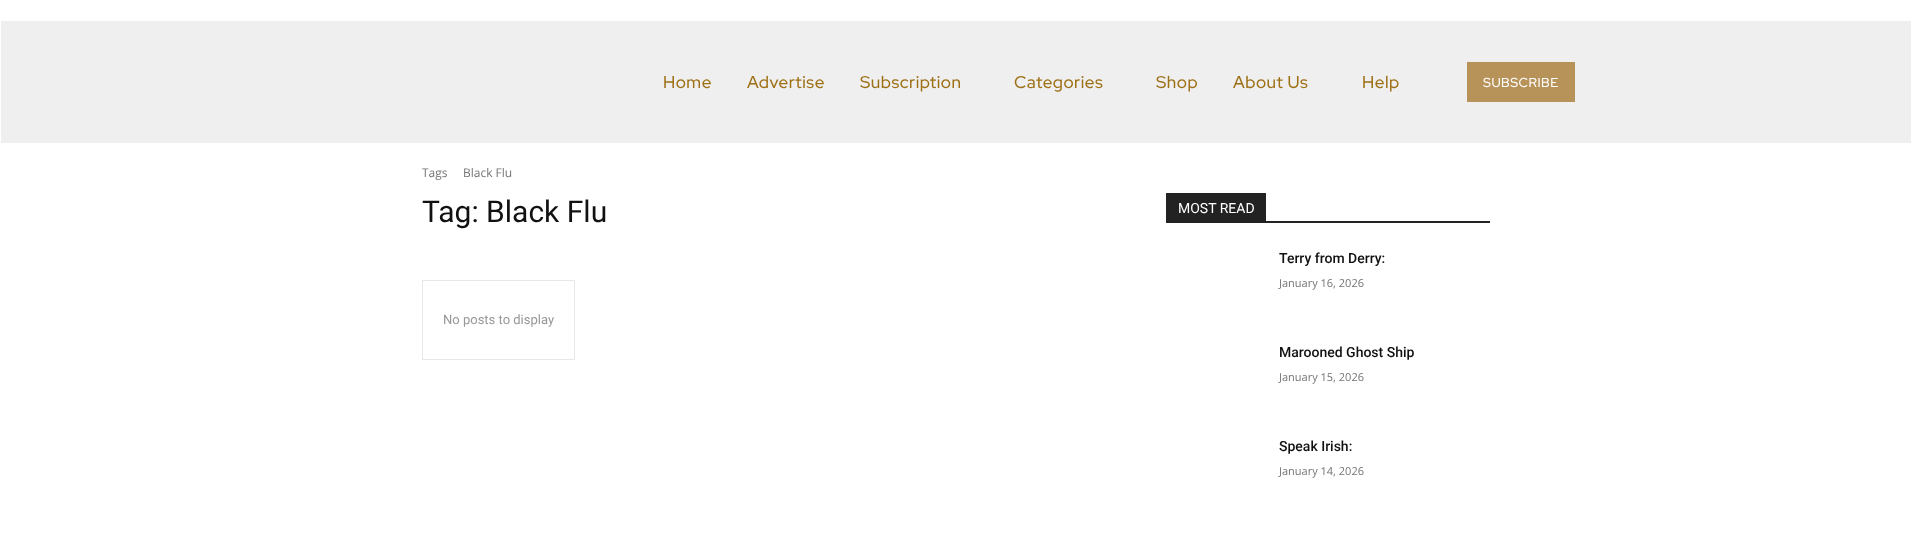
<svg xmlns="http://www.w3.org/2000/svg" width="1911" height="533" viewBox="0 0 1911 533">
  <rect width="100%" height="100%" fill="#ffffff"/>
  <rect x="1" y="21" width="1910" height="122" fill="#efefef"/>
  <text x="663" y="88" font-family="Red Hat Display" font-size="17" font-weight="500" letter-spacing="0.5" fill="#9e7016">Home</text>
  <text x="747" y="88" font-family="Red Hat Display" font-size="17" font-weight="500" letter-spacing="0.5" fill="#9e7016">Advertise</text>
  <text x="860" y="88" font-family="Red Hat Display" font-size="17" font-weight="500" letter-spacing="0.5" fill="#9e7016">Subscription</text>
  <text x="1014" y="88" font-family="Red Hat Display" font-size="17" font-weight="500" letter-spacing="0.5" fill="#9e7016">Categories</text>
  <text x="1156" y="88" font-family="Red Hat Display" font-size="17" font-weight="500" letter-spacing="0.5" fill="#9e7016">Shop</text>
  <text x="1233" y="88" font-family="Red Hat Display" font-size="17" font-weight="500" letter-spacing="0.5" fill="#9e7016">About Us</text>
  <text x="1362" y="88" font-family="Red Hat Display" font-size="17" font-weight="500" letter-spacing="0.5" fill="#9e7016">Help</text>
  <rect x="1467" y="62" width="108" height="40" fill="#b79259"/>
  <text x="1483" y="87" font-family="Red Hat Display" font-size="13" font-weight="500" letter-spacing="0.5" fill="#ffffff">SUBSCRIBE</text>
  <text x="422" y="177" font-family="Open Sans" font-size="12" fill="#747474">Tags</text>
  <text x="463" y="177" font-family="Open Sans" font-size="12" fill="#747474">Black Flu</text>
  <text x="422" y="222" font-family="Roboto" font-size="30" fill="#111111">Tag: Black Flu</text>
  <rect x="422.5" y="280.5" width="152" height="79" fill="none" stroke="#e8e8e8"/>
  <text x="443" y="324" font-family="Roboto" font-size="13" fill="#979797">No posts to display</text>
  <rect x="1166" y="221" width="324" height="2" fill="#222222"/>
  <rect x="1166" y="193" width="100" height="28" fill="#222222"/>
  <text x="1178" y="213" font-family="Roboto" font-size="14" fill="#ffffff">MOST READ</text>
  <text x="1279" y="263" font-family="Roboto" font-size="14" font-weight="500" fill="#111111">Terry from Derry:</text>
  <text x="1279" y="287" font-family="Open Sans" font-size="11" fill="#747474">January 16, 2026</text>
  <text x="1279" y="357" font-family="Roboto" font-size="14" font-weight="500" fill="#111111">Marooned Ghost Ship</text>
  <text x="1279" y="381" font-family="Open Sans" font-size="11" fill="#747474">January 15, 2026</text>
  <text x="1279" y="451" font-family="Roboto" font-size="14" font-weight="500" fill="#111111">Speak Irish:</text>
  <text x="1279" y="475" font-family="Open Sans" font-size="11" fill="#747474">January 14, 2026</text>
</svg>
